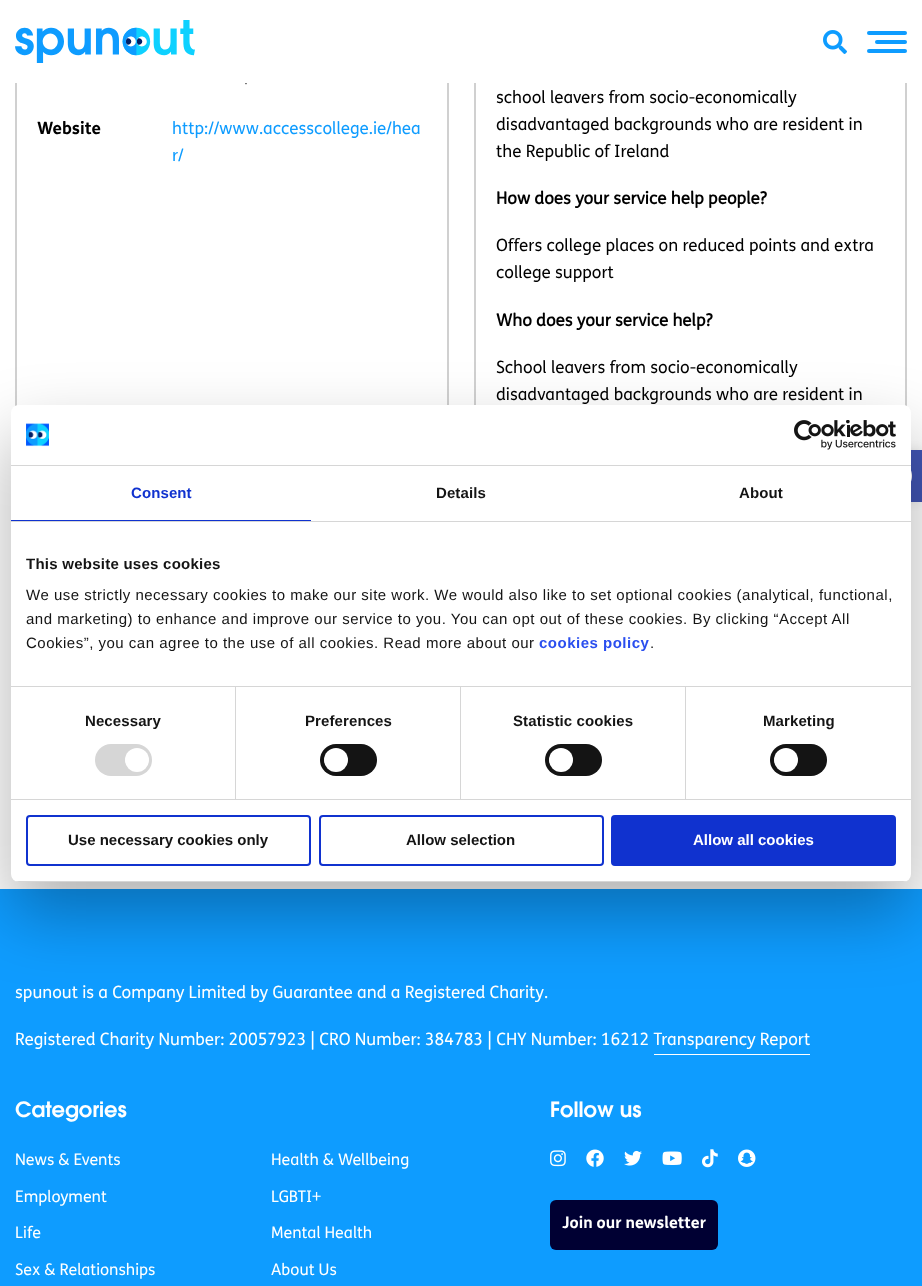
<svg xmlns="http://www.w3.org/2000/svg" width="922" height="1286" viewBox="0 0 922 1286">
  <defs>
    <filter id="blur1" x="-50%" y="-200%" width="200%" height="500%"><feGaussianBlur stdDeviation="5"/></filter>
    <filter id="blur2" x="-50%" y="-200%" width="200%" height="500%"><feGaussianBlur stdDeviation="34"/></filter>
    <clipPath id="clip1"><rect x="11" y="405" width="900" height="477" rx="8"/></clipPath>
  </defs>
  <rect width="100%" height="100%" fill="#ffffff"/>
  <rect x="16" y="-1" width="432" height="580" fill="none" stroke="#d0d0d0" stroke-width="2"/>
  <rect x="475" y="-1" width="431" height="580" fill="none" stroke="#d0d0d0" stroke-width="2"/>
  <rect x="15" y="0" width="892" height="83" fill="#ffffff"/>
  <image x="15" y="20" width="180" height="43" href="img1.png"/>
  <image x="823" y="30" width="24" height="24" href="img2.png"/>
  <rect x="867" y="31" width="40" height="4" rx="2" fill="#0e9cff"/>
  <rect x="875" y="40" width="32" height="4" rx="2" fill="#0e9cff"/>
  <rect x="867" y="49" width="40" height="4" rx="2" fill="#0e9cff"/>
  <image x="55" y="83" width="356" height="2" href="img3.png"/>
  <text x="37" y="134" font-family="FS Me" font-size="17" font-weight="bold" fill="#000000">Website</text>
  <text x="172" y="134" font-family="FS Me" font-size="17" fill="#0e9cff">http://www.accesscollege.ie/hea</text>
  <text x="172" y="161" font-family="FS Me" font-size="17" fill="#0e9cff">r/</text>
  <text x="496" y="103" font-family="FS Me" font-size="17" fill="#000000">school leavers from socio-economically</text>
  <text x="496" y="130" font-family="FS Me" font-size="17" fill="#000000">disadvantaged backgrounds who are resident in</text>
  <text x="496" y="157" font-family="FS Me" font-size="17" fill="#000000">the Republic of Ireland</text>
  <text x="496" y="204" font-family="'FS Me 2'" font-size="17" font-weight="bold" fill="#000000">How does your service help people?</text>
  <text x="496" y="251" font-family="FS Me" font-size="17" fill="#000000">Offers college places on reduced points and extra</text>
  <text x="496" y="278" font-family="FS Me" font-size="17" fill="#000000">college support</text>
  <text x="496" y="326" font-family="'FS Me 2'" font-size="17" font-weight="bold" fill="#000000">Who does your service help?</text>
  <text x="496" y="373" font-family="FS Me" font-size="17" fill="#000000">School leavers from socio-economically</text>
  <text x="496" y="400" font-family="FS Me" font-size="17" fill="#000000">disadvantaged backgrounds who are resident in</text>
  <rect x="0" y="889" width="922" height="397" fill="#0e9cff"/>
  <text x="15" y="998" font-family="FS Me" font-size="17" fill="#ffffff">spunout is a Company Limited by Guarantee and a Registered Charity.</text>
  <text x="15" y="1045" font-family="FS Me" font-size="17" fill="#ffffff">Registered Charity Number: 20057923 | CRO Number: 384783 | CHY Number: 16212 Transparency Report</text>
  <rect x="654" y="1054" width="156" height="1" fill="#ffffff"/>
  <text x="15" y="1117" font-family="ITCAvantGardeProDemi" font-size="21" font-weight="600" fill="#ffffff">Categories</text>
  <text x="15" y="1165" font-family="FS Me" font-size="16" fill="#ffffff">News &amp; Events</text>
  <text x="271" y="1165" font-family="FS Me" font-size="16" fill="#ffffff">Health &amp; Wellbeing</text>
  <text x="15" y="1202" font-family="FS Me" font-size="16" fill="#ffffff">Employment</text>
  <text x="271" y="1202" font-family="FS Me" font-size="16" fill="#ffffff">LGBTI+</text>
  <text x="15" y="1238" font-family="FS Me" font-size="16" fill="#ffffff">Life</text>
  <text x="271" y="1238" font-family="FS Me" font-size="16" fill="#ffffff">Mental Health</text>
  <text x="15" y="1275" font-family="FS Me" font-size="16" fill="#ffffff">Sex &amp; Relationships</text>
  <text x="271" y="1275" font-family="FS Me" font-size="16" fill="#ffffff">About Us</text>
  <text x="550" y="1117" font-family="ITCAvantGardeProDemi" font-size="21" font-weight="600" fill="#ffffff">Follow us</text>
  <image x="550" y="1150" width="16" height="17" href="img4.png"/>
  <image x="586" y="1149" width="18" height="18" href="img5.png"/>
  <image x="624" y="1150" width="18" height="16" href="img6.png"/>
  <image x="662" y="1151" width="20" height="14" href="img7.png"/>
  <image x="702" y="1149" width="16" height="19" href="img8.png"/>
  <image x="738" y="1149" width="18" height="18" href="img9.png"/>
  <rect x="550" y="1200" width="168" height="50" rx="6" fill="#000033"/>
  <text x="562" y="1228" font-family="FS Me" font-size="16" font-weight="bold" fill="#ffffff">Join our newsletter</text>
  <rect x="870" y="450" width="52" height="52" fill="#000000" fill-opacity="0.1" filter="url(#blur1)"/>
  <rect x="911" y="450" width="11" height="52" fill="#4054b2"/>
  <image x="911" y="470" width="1" height="12" href="img10.png"/>
  <rect x="11" y="437" width="900" height="477" rx="8" fill="#000000" fill-opacity="0.3" filter="url(#blur2)"/>
  <rect x="11" y="405" width="900" height="477" rx="8" fill="#ffffff"/>
  <rect x="11" y="465" width="900" height="1" fill="#d6d6d6"/>
  <image x="26" y="423" width="23" height="24" href="img11.png"/>
  <image x="794" y="420" width="102" height="30" href="img12.png"/>
  <rect x="11" y="521" width="900" height="1" fill="#d6d6d6"/>
  <rect x="11" y="520" width="300" height="1" fill="#1032cf"/>
  <text x="131" y="498" font-family="Liberation Sans" font-size="15" font-weight="bold" letter-spacing="0.1" fill="#1032cf">Consent</text>
  <text x="436" y="498" font-family="Liberation Sans" font-size="15" font-weight="bold" letter-spacing="0.1" fill="#141414">Details</text>
  <text x="739" y="498" font-family="Liberation Sans" font-size="15" font-weight="bold" letter-spacing="0.1" fill="#141414">About</text>
  <rect x="11" y="686" width="900" height="1" fill="#d6d6d6"/>
  <text x="26" y="569" font-family="Liberation Sans" font-size="15" font-weight="bold" letter-spacing="0.25" fill="#141414">This website uses cookies</text>
  <text x="26" y="600" font-family="Liberation Sans" font-size="15" letter-spacing="0.5" fill="#141414">We use strictly necessary cookies to make our site work. We would also like to set optional cookies (analytical, functional,</text>
  <text x="26" y="624" font-family="Liberation Sans" font-size="15" letter-spacing="0.5" fill="#141414">and marketing) to enhance and improve our service to you. You can opt out of these cookies. By clicking “Accept All</text>
  <text x="26" y="648" font-family="Liberation Sans" font-size="15" letter-spacing="0.5" fill="#141414">Cookies”, you can agree to the use of all cookies. Read more about our</text>
  <text x="539" y="648" font-family="Liberation Sans" font-size="15" font-weight="bold" letter-spacing="0.5" fill="#2a4eef">cookies policy</text>
  <text x="650" y="648" font-family="Liberation Sans" font-size="15" letter-spacing="0.5" fill="#141414">.</text>
  <rect x="11" y="799" width="900" height="1" fill="#d6d6d6"/>
  <rect x="235" y="687" width="1" height="112" fill="#d6d6d6"/>
  <text x="85" y="726" font-family="Liberation Sans" font-size="15" font-weight="bold" letter-spacing="0.1" fill="#141414">Necessary</text>
  <rect x="95" y="744" width="57" height="32" rx="16" fill="#d6d6d6"/>
  <circle cx="137" cy="760" r="12" fill="#ffffff"/>
  <rect x="460" y="687" width="1" height="112" fill="#d6d6d6"/>
  <text x="305" y="726" font-family="Liberation Sans" font-size="15" font-weight="bold" letter-spacing="0.1" fill="#141414">Preferences</text>
  <rect x="320" y="744" width="57" height="32" rx="16" fill="#141414"/>
  <circle cx="336" cy="760" r="12" fill="#ffffff"/>
  <rect x="685" y="687" width="1" height="112" fill="#d6d6d6"/>
  <text x="513" y="726" font-family="Liberation Sans" font-size="15" font-weight="bold" letter-spacing="0.1" fill="#141414">Statistic cookies</text>
  <rect x="545" y="744" width="57" height="32" rx="16" fill="#141414"/>
  <circle cx="561" cy="760" r="12" fill="#ffffff"/>
  <text x="763" y="726" font-family="Liberation Sans" font-size="15" font-weight="bold" letter-spacing="0.1" fill="#141414">Marketing</text>
  <rect x="770" y="744" width="57" height="32" rx="16" fill="#141414"/>
  <circle cx="786" cy="760" r="12" fill="#ffffff"/>
  <g clip-path="url(#clip1)">
    <rect x="11" y="881" width="900" height="1" fill="#d6d6d6"/>
  </g>
  <rect x="27" y="816" width="283" height="49" rx="3" fill="none" stroke="#1032cf" stroke-width="2"/>
  <text x="68" y="845" font-family="Liberation Sans" font-size="15" font-weight="bold" fill="#141414">Use necessary cookies only</text>
  <rect x="320" y="816" width="283" height="49" rx="3" fill="none" stroke="#1032cf" stroke-width="2"/>
  <text x="406" y="845" font-family="Liberation Sans" font-size="15" font-weight="bold" fill="#141414">Allow selection</text>
  <rect x="612" y="816" width="283" height="49" rx="3" fill="#1032cf" stroke="#1032cf" stroke-width="2"/>
  <text x="693" y="845" font-family="Liberation Sans" font-size="15" font-weight="bold" fill="#ffffff">Allow all cookies</text>
</svg>
